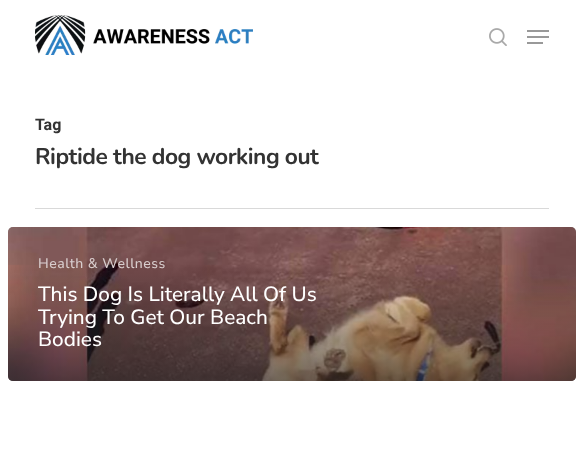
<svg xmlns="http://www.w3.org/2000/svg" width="584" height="465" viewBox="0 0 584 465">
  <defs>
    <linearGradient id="g1" gradientUnits="userSpaceOnUse" x1="294" y1="266" x2="294" y2="381"><stop offset="0" stop-color="#232323" stop-opacity="0"/><stop offset="1" stop-color="#232323" stop-opacity="0.65"/></linearGradient>
  </defs>
  <rect width="100%" height="100%" fill="#ffffff"/>
  <image x="35" y="15" width="218" height="40" href="img1.png"/>
  <image x="489" y="28" width="18" height="18" href="img2.png"/>
  <rect x="527" y="30" width="22" height="2" fill="#999999"/>
  <rect x="527" y="42" width="16" height="2" fill="#999999"/>
  <rect x="527" y="36" width="22" height="2" fill="#999999"/>
  <rect x="35" y="208" width="514" height="1" fill="#d9d9d9"/>
  <text x="35" y="130" font-family="Roboto" font-size="16" font-weight="bold" fill="#333333">Tag</text>
  <text x="35" y="164" font-family="Nunito" font-size="22.75" font-weight="bold" letter-spacing="-0.5" fill="#333333">Riptide the dog working out</text>
  <rect x="8" y="227" width="568" height="154" rx="5" fill="#b3b3b3"/>
  <image x="8" y="227" width="568" height="154" href="img3.png"/>
  <path d="M8 266H576V376C576 379 574 381 571 381H13C10 381 8 379 8 376Z" fill="url(#g1)"/>
  <text x="38" y="268" font-family="Nunito Sans" font-size="14" font-weight="500" letter-spacing="0.5" fill="#d8cdcd">Health &amp; Wellness</text>
  <text x="38" y="301" font-family="Nunito Sans" font-size="20.75" font-weight="500" fill="#ffffff">This Dog Is Literally All Of Us</text>
  <text x="38" y="324" font-family="Nunito Sans" font-size="20.75" font-weight="500" fill="#ffffff">Trying To Get Our Beach</text>
  <text x="38" y="346" font-family="Nunito Sans" font-size="20.75" font-weight="500" fill="#ffffff">Bodies</text>
</svg>
